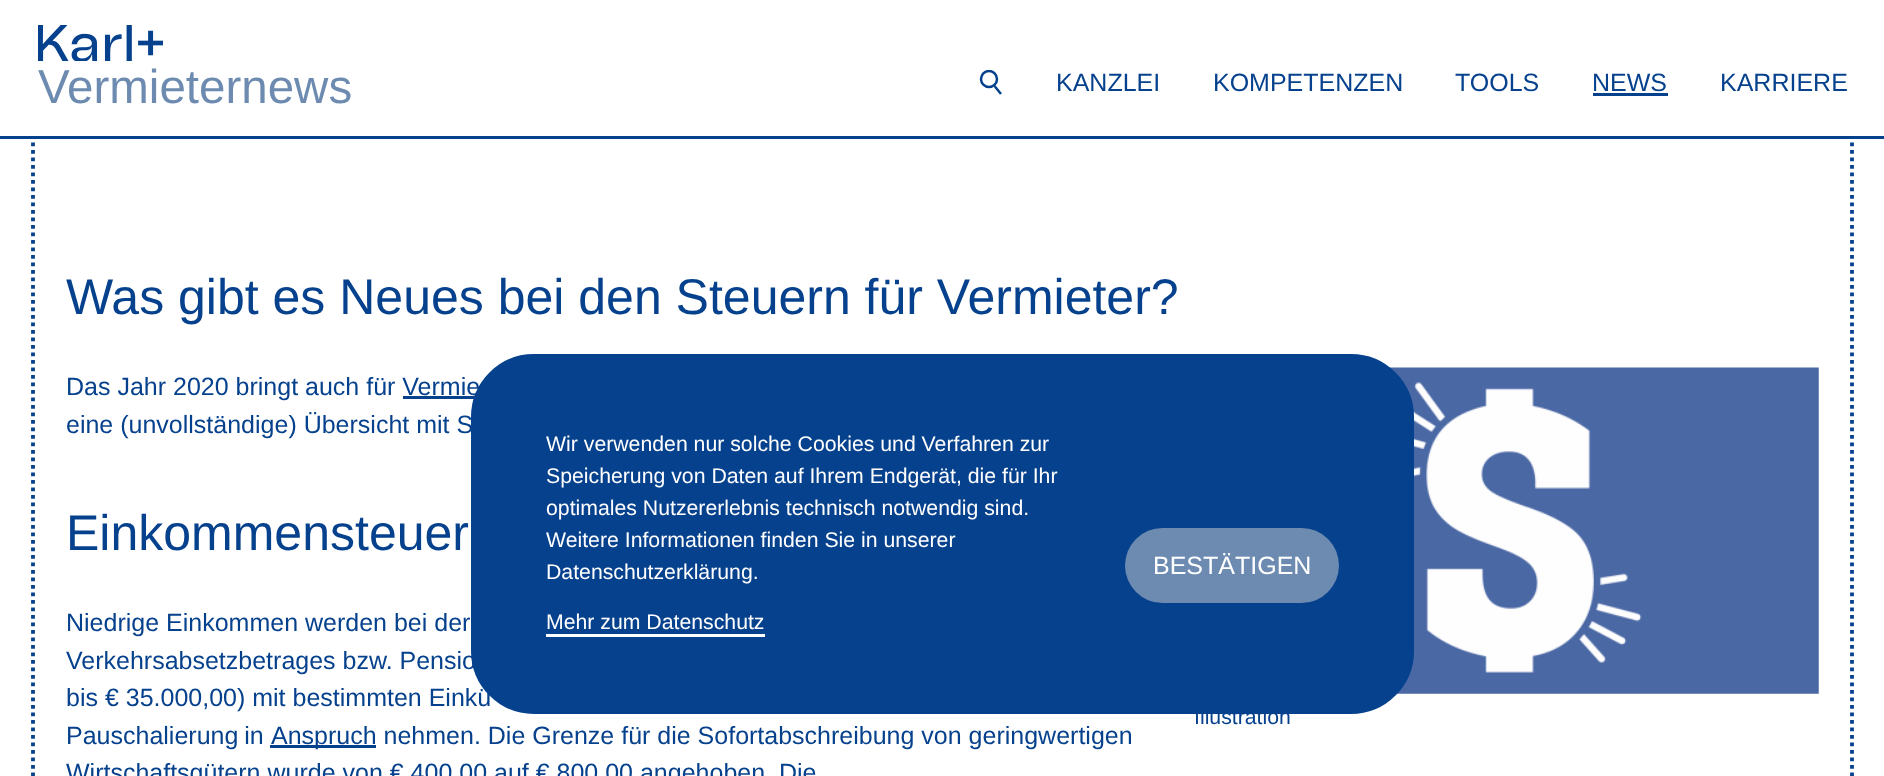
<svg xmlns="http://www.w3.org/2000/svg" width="1884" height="776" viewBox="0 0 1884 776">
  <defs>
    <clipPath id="clip1"><rect x="979" y="70" width="25" height="25"/></clipPath>
  </defs>
  <rect width="100%" height="100%" fill="#ffffff"/>
  <path d="M1852 112.5V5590" fill="none" stroke="#06418d" stroke-width="3.8" stroke-dasharray="3.75 3.75"/>
  <path d="M33 112.5V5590" fill="none" stroke="#06418d" stroke-width="3.8" stroke-dasharray="3.75 3.75"/>
  <rect x="31" y="112" width="1823" height="24" fill="#ffffff"/>
  <image x="38" y="25" width="125" height="36" href="img1.png"/>
  <text x="38" y="103" font-family="Liberation Sans" font-size="47.5" fill="#6d8bb0">Vermieternews</text>
  <path d="M994.5 86L1001 94" fill="none" stroke="#06418d" stroke-width="2.5"/>
  <g clip-path="url(#clip1)">
    <circle cx="989" cy="79" r="8" fill="none" stroke="#06418d" stroke-width="2.5"/>
  </g>
  <text x="1056" y="91" font-family="Liberation Sans" font-size="25" fill="#06418d">KANZLEI</text>
  <text x="1213" y="91" font-family="Liberation Sans" font-size="25" fill="#06418d">KOMPETENZEN</text>
  <text x="1455" y="91" font-family="Liberation Sans" font-size="25" fill="#06418d">TOOLS</text>
  <text x="1592" y="91" font-family="Liberation Sans" font-size="25" fill="#06418d">NEWS</text>
  <rect x="1593" y="93" width="75" height="3" fill="#06418d"/>
  <text x="1720" y="91" font-family="Liberation Sans" font-size="25" fill="#06418d">KARRIERE</text>
  <rect x="0" y="136" width="1884" height="3" fill="#06418d"/>
  <text x="66" y="314" font-family="Liberation Sans" font-size="50" fill="#06418d">Was gibt es Neues bei den Steuern für Vermieter?</text>
  <text x="66" y="395" font-family="Liberation Sans" font-size="25" fill="#06418d">Das Jahr 2020 bringt auch für Vermie</text>
  <rect x="403" y="396" width="72" height="3" fill="#06418d"/>
  <text x="66" y="433" font-family="Liberation Sans" font-size="25" fill="#06418d">eine (unvollständige) Übersicht mit S</text>
  <text x="66" y="550" font-family="Liberation Sans" font-size="50" fill="#06418d">Einkommensteuer</text>
  <text x="66" y="631" font-family="Liberation Sans" font-size="25" fill="#06418d">Niedrige Einkommen werden bei der</text>
  <text x="66" y="669" font-family="Liberation Sans" font-size="25" fill="#06418d">Verkehrsabsetzbetrages bzw. Pensio</text>
  <text x="66" y="706" font-family="Liberation Sans" font-size="25" fill="#06418d">bis € 35.000,00) mit bestimmten Einkü</text>
  <text x="66" y="744" word-spacing="-1" font-family="Liberation Sans" font-size="25" fill="#06418d">Pauschalierung in</text>
  <rect x="270" y="745" width="106" height="3" fill="#06418d"/>
  <text x="271" y="744" font-family="Liberation Sans" font-size="25" fill="#06418d">Anspruch nehmen. Die Grenze für die Sofortabschreibung von geringwertigen</text>
  <text x="66" y="781" font-family="Liberation Sans" font-size="25" fill="#06418d">Wirtschaftsgütern wurde von € 400,00 auf € 800,00 angehoben. Die</text>
  <image x="1389" y="367" width="430" height="327" href="img2.png"/>
  <text x="1194" y="724" font-family="Liberation Sans" font-size="21.25" fill="#06418d">Illustration</text>
  <rect x="490" y="373" width="905" height="322" rx="44" fill="#06418d" stroke="#06418d" stroke-width="38"/>
  <text x="546" y="451" font-family="Liberation Sans" font-size="21.25" fill="#ffffff">Wir verwenden nur solche Cookies und Verfahren zur</text>
  <text x="546" y="483" font-family="Liberation Sans" font-size="21.25" fill="#ffffff">Speicherung von Daten auf Ihrem Endgerät, die für Ihr</text>
  <text x="546" y="515" font-family="Liberation Sans" font-size="21.25" fill="#ffffff">optimales Nutzererlebnis technisch notwendig sind.</text>
  <text x="546" y="547" font-family="Liberation Sans" font-size="21.25" fill="#ffffff">Weitere Informationen finden Sie in unserer</text>
  <text x="546" y="579" font-family="Liberation Sans" font-size="21.25" fill="#ffffff">Datenschutzerklärung.</text>
  <rect x="1125" y="528" width="214" height="75" rx="37.5" fill="#6d8bb0"/>
  <text x="1153" y="574" font-family="Liberation Sans" font-size="25" fill="#ffffff">BESTÄTIGEN</text>
  <text x="546" y="629" font-family="Liberation Sans" font-size="21.25" fill="#ffffff">Mehr zum Datenschutz</text>
  <rect x="546" y="634" width="219" height="3" fill="#ffffff"/>
</svg>
